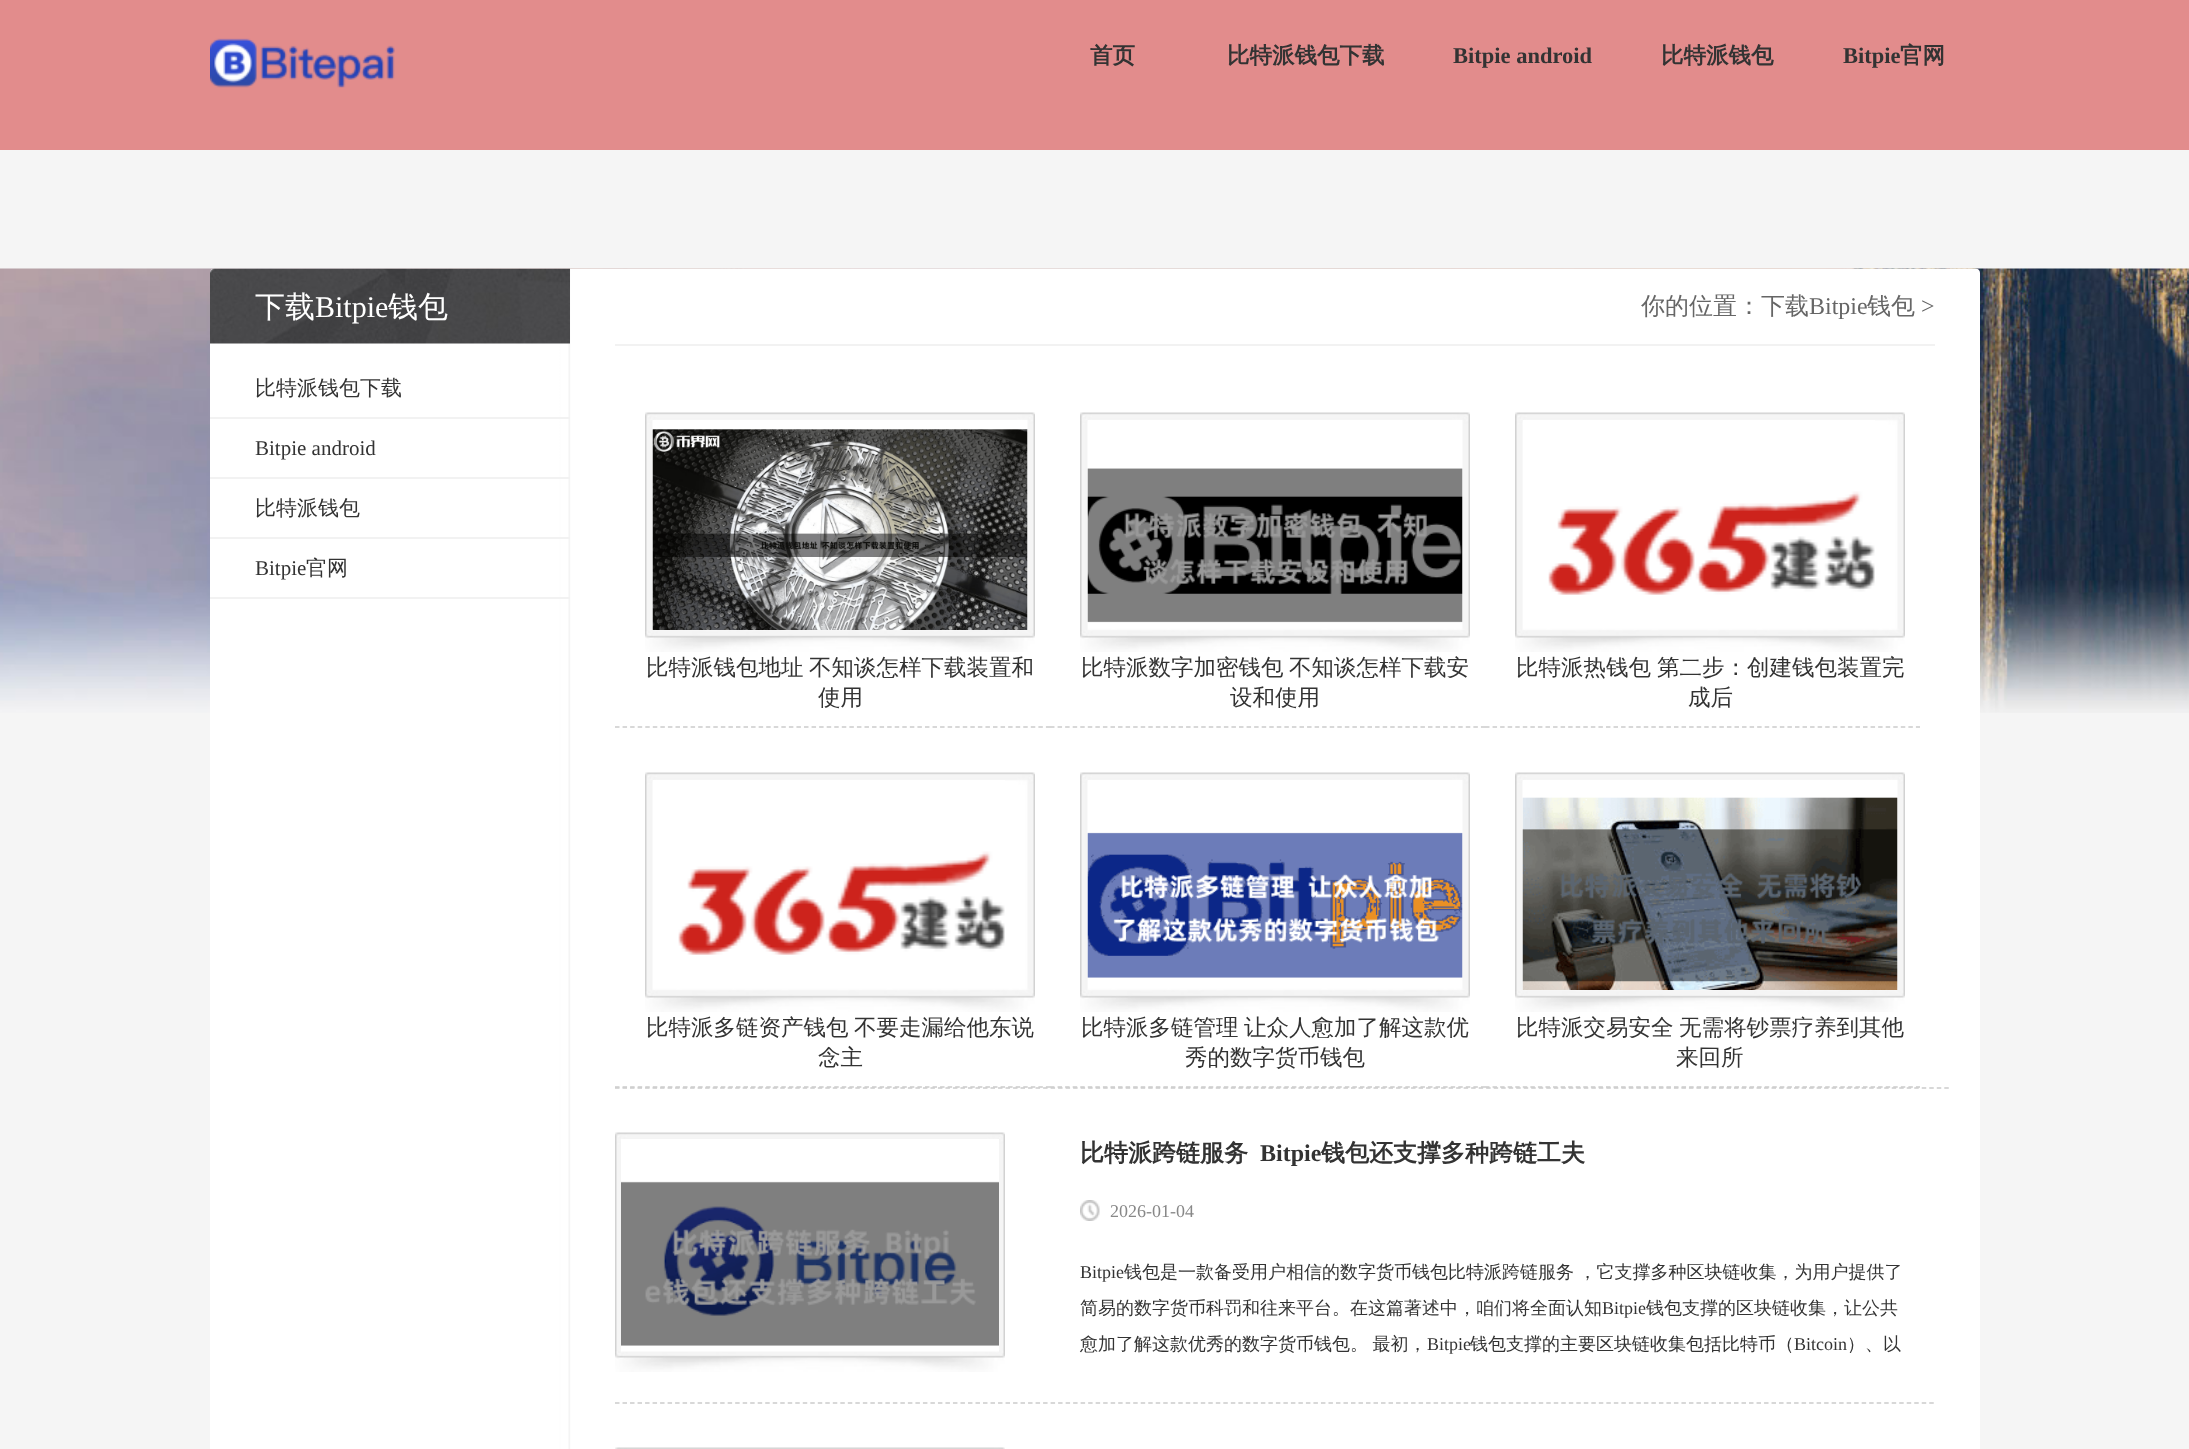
<svg xmlns="http://www.w3.org/2000/svg" width="2189" height="1449" viewBox="0 0 2189 1449">
  <rect width="100%" height="100%" fill="#f5f5f5"/>
  <rect x="0" y="0" width="2189" height="150" fill="#e28c8c"/>
  <image x="210" y="38" width="185" height="50" href="img1.png"/>
  <text x="1090" y="63" font-family="WenQuanYi Zen Hei" font-size="22.5" font-weight="bold" fill="#333333">首页</text>
  <text x="1227" y="63" font-family="WenQuanYi Zen Hei" font-size="22.5" font-weight="bold" fill="#333333">比特派钱包下载</text>
  <text x="1453" y="63" font-family="Liberation Serif" font-size="22.5" font-weight="bold" fill="#333333">Bitpie android</text>
  <text x="1661" y="63" font-family="WenQuanYi Zen Hei" font-size="22.5" font-weight="bold" fill="#333333">比特派钱包</text>
  <text x="1843" y="63" font-family="Liberation Serif" font-size="22.5" font-weight="bold" fill="#333333">Bitpie</text>
  <text x="1900" y="63" font-family="WenQuanYi Zen Hei" font-size="22.5" font-weight="bold" fill="#333333">官网</text>
  <image x="0" y="268" width="2189" height="445" href="img2.png"/>
  <image x="210" y="268" width="1770" height="1181" href="img3.png"/>
  <image x="210" y="268" width="360" height="76" href="img4.png"/>
  <text x="255" y="317" font-family="WenQuanYi Zen Hei" font-size="30" font-weight="500" fill="#ffffff">下载</text>
  <text x="315" y="317" font-family="Liberation Serif" font-size="30" fill="#ffffff">Bitpie</text>
  <text x="388" y="317" font-family="WenQuanYi Zen Hei" font-size="30" font-weight="500" fill="#ffffff">钱包</text>
  <rect x="210" y="417" width="360" height="2" fill="#f2f2f2"/>
  <text x="255" y="395" font-family="WenQuanYi Zen Hei" font-size="21" font-weight="500" fill="#333333">比特派钱包下载</text>
  <rect x="210" y="477" width="360" height="2" fill="#f2f2f2"/>
  <text x="255" y="455" font-family="Liberation Serif" font-size="21" fill="#333333">Bitpie android</text>
  <rect x="210" y="537" width="360" height="2" fill="#f2f2f2"/>
  <text x="255" y="515" font-family="WenQuanYi Zen Hei" font-size="21" font-weight="500" fill="#333333">比特派钱包</text>
  <rect x="210" y="597" width="360" height="2" fill="#f2f2f2"/>
  <text x="255" y="575" font-family="Liberation Serif" font-size="21" fill="#333333">Bitpie</text>
  <text x="306" y="575" font-family="WenQuanYi Zen Hei" font-size="21" font-weight="500" fill="#333333">官网</text>
  <rect x="615" y="344" width="1320" height="2" fill="#f2f2f2"/>
  <text x="1641" y="314" font-family="WenQuanYi Zen Hei" font-size="24" font-weight="500" fill="#666666">你的位置：下载</text>
  <text x="1809" y="314" font-family="Liberation Serif" font-size="24" fill="#666666">Bitpie</text>
  <text x="1867" y="314" font-family="WenQuanYi Zen Hei" font-size="24" font-weight="500" fill="#666666">钱包</text>
  <text x="1921" y="314" font-family="Liberation Serif" font-size="24" fill="#666666">&gt;</text>
  <path d="M615 1088H1950" fill="none" stroke="#cccccc" stroke-width="1.5" stroke-dasharray="4.5 3.01"/>
  <path d="M615 727H1050" fill="none" stroke="#cccccc" stroke-width="1.5" stroke-dasharray="4.5 3.06"/>
  <image x="645" y="412" width="390" height="240" href="img5.png"/>
  <image x="652" y="420" width="376" height="210" href="img6.png"/>
  <text x="646" y="675" font-family="WenQuanYi Zen Hei" font-size="22.5" font-weight="500" fill="#333333">比特派钱包地址</text>
  <text x="809" y="675" font-family="WenQuanYi Zen Hei" font-size="22.5" font-weight="500" fill="#333333">不知谈怎样下载装置和</text>
  <text x="818" y="705" font-family="WenQuanYi Zen Hei" font-size="22.5" font-weight="500" fill="#333333">使用</text>
  <path d="M1050 727H1485" fill="none" stroke="#cccccc" stroke-width="1.5" stroke-dasharray="4.5 3.06"/>
  <image x="1080" y="412" width="390" height="240" href="img7.png"/>
  <image x="1087" y="420" width="376" height="203" href="img8.png"/>
  <text x="1081" y="675" font-family="WenQuanYi Zen Hei" font-size="22.5" font-weight="500" fill="#333333">比特派数字加密钱包</text>
  <text x="1289" y="675" font-family="WenQuanYi Zen Hei" font-size="22.5" font-weight="500" fill="#333333">不知谈怎样下载安</text>
  <text x="1230" y="705" font-family="WenQuanYi Zen Hei" font-size="22.5" font-weight="500" fill="#333333">设和使用</text>
  <path d="M1485 727H1920" fill="none" stroke="#cccccc" stroke-width="1.5" stroke-dasharray="4.5 3.06"/>
  <image x="1515" y="412" width="390" height="240" href="img9.png"/>
  <image x="1523" y="420" width="352" height="175" href="img10.png"/>
  <text x="1516" y="675" font-family="WenQuanYi Zen Hei" font-size="22.5" font-weight="500" fill="#333333">比特派热钱包</text>
  <text x="1657" y="675" font-family="WenQuanYi Zen Hei" font-size="22.5" font-weight="500" fill="#333333">第二步：创建钱包装置完</text>
  <text x="1688" y="705" font-family="WenQuanYi Zen Hei" font-size="22.5" font-weight="500" fill="#333333">成后</text>
  <path d="M615 1087H1050" fill="none" stroke="#cccccc" stroke-width="1.5" stroke-dasharray="4.5 3.06"/>
  <image x="645" y="772" width="390" height="240" href="img5.png"/>
  <image x="653" y="780" width="352" height="175" href="img11.png"/>
  <text x="646" y="1035" font-family="WenQuanYi Zen Hei" font-size="22.5" font-weight="500" fill="#333333">比特派多链资产钱包</text>
  <text x="854" y="1035" font-family="WenQuanYi Zen Hei" font-size="22.5" font-weight="500" fill="#333333">不要走漏给他东说</text>
  <text x="818" y="1065" font-family="WenQuanYi Zen Hei" font-size="22.5" font-weight="500" fill="#333333">念主</text>
  <path d="M1050 1087H1485" fill="none" stroke="#cccccc" stroke-width="1.5" stroke-dasharray="4.5 3.06"/>
  <image x="1080" y="772" width="390" height="240" href="img7.png"/>
  <image x="1087" y="780" width="376" height="198" href="img12.png"/>
  <text x="1081" y="1035" font-family="WenQuanYi Zen Hei" font-size="22.5" font-weight="500" fill="#333333">比特派多链管理</text>
  <text x="1244" y="1035" font-family="WenQuanYi Zen Hei" font-size="22.5" font-weight="500" fill="#333333">让众人愈加了解这款优</text>
  <text x="1185" y="1065" font-family="WenQuanYi Zen Hei" font-size="22.5" font-weight="500" fill="#333333">秀的数字货币钱包</text>
  <path d="M1485 1087H1920" fill="none" stroke="#cccccc" stroke-width="1.5" stroke-dasharray="4.5 3.06"/>
  <image x="1515" y="772" width="390" height="240" href="img9.png"/>
  <image x="1522" y="780" width="376" height="210" href="img13.png"/>
  <text x="1516" y="1035" font-family="WenQuanYi Zen Hei" font-size="22.5" font-weight="500" fill="#333333">比特派交易安全</text>
  <text x="1679" y="1035" font-family="WenQuanYi Zen Hei" font-size="22.5" font-weight="500" fill="#333333">无需将钞票疗养到其他</text>
  <text x="1676" y="1065" font-family="WenQuanYi Zen Hei" font-size="22.5" font-weight="500" fill="#333333">来回所</text>
  <path d="M615 1403H1935" fill="none" stroke="#cccccc" stroke-width="1.5" stroke-dasharray="4.5 3.01"/>
  <image x="615" y="1132" width="390" height="240" href="img5.png"/>
  <image x="621" y="1139" width="378" height="213" href="img14.png"/>
  <text x="1080" y="1161" font-family="WenQuanYi Zen Hei" font-size="24" font-weight="bold" fill="#333333">比特派跨链服务</text>
  <text x="1260" y="1161" font-family="Liberation Serif" font-size="24" font-weight="bold" fill="#333333">Bitpie</text>
  <text x="1321" y="1161" font-family="WenQuanYi Zen Hei" font-size="24" font-weight="bold" fill="#333333">钱包还支撑多种跨链工夫</text>
  <image x="1080" y="1200" width="20" height="21" href="img15.png"/>
  <text x="1110" y="1217" font-family="Liberation Serif" font-size="18" fill="#888888">2026-01-04</text>
  <text x="1080" y="1278" font-family="Liberation Serif" font-size="18" fill="#333333">Bitpie</text>
  <text x="1124" y="1278" word-spacing="-1" font-family="WenQuanYi Zen Hei" font-size="18" font-weight="500" fill="#333333">钱包是一款备受用户相信的数字货币钱包比特派跨链服务 ，它支撑多种区块链收集，为用户提供了</text>
  <text x="1080" y="1314" font-family="WenQuanYi Zen Hei" font-size="18" font-weight="500" fill="#333333">简易的数字货币科罚和往来平台。在这篇著述中，咱们将全面认知</text>
  <text x="1602" y="1314" font-family="Liberation Serif" font-size="18" fill="#333333">Bitpie</text>
  <text x="1646" y="1314" font-family="WenQuanYi Zen Hei" font-size="18" font-weight="500" fill="#333333">钱包支撑的区块链收集，让公共</text>
  <text x="1080" y="1350" word-spacing="-1" font-family="WenQuanYi Zen Hei" font-size="18" font-weight="500" fill="#333333">愈加了解这款优秀的数字货币钱包。 最初，</text>
  <text x="1427" y="1350" font-family="Liberation Serif" font-size="18" fill="#333333">Bitpie</text>
  <text x="1470" y="1350" font-family="WenQuanYi Zen Hei" font-size="18" font-weight="500" fill="#333333">钱包支撑的主要区块链收集包括比特币（</text>
  <text x="1794" y="1350" font-family="Liberation Serif" font-size="18" fill="#333333">Bitcoin</text>
  <text x="1847" y="1350" font-family="WenQuanYi Zen Hei" font-size="18" font-weight="500" fill="#333333">）、以</text>
  <image x="615" y="1447" width="390" height="2" href="img16.png"/>
</svg>
